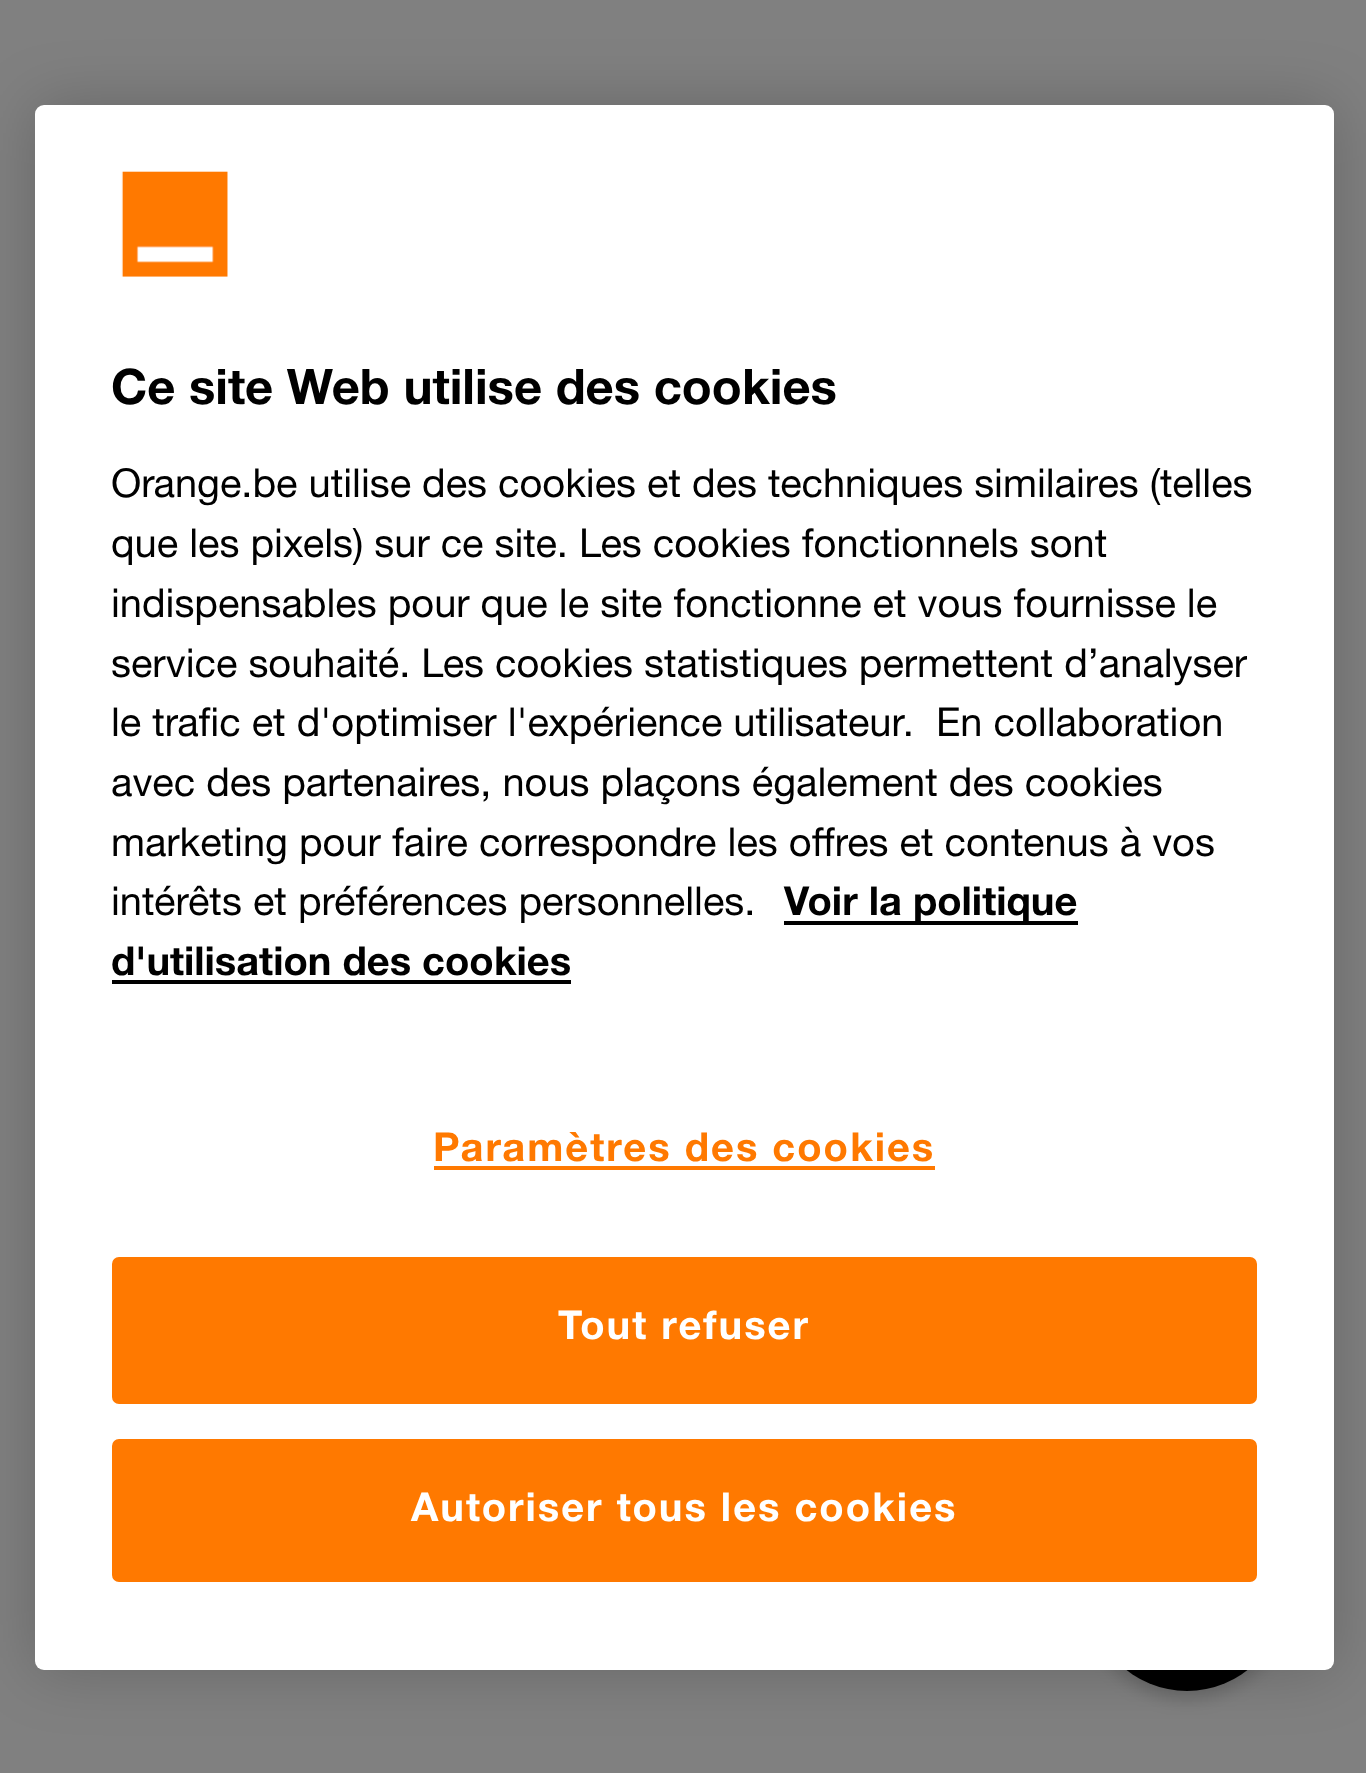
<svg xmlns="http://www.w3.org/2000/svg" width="1366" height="1773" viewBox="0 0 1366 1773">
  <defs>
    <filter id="blur1" x="-50%" y="-200%" width="200%" height="500%"><feGaussianBlur stdDeviation="9"/></filter>
    <filter id="blur2" x="-50%" y="-200%" width="200%" height="500%"><feGaussianBlur stdDeviation="31.5"/></filter>
  </defs>
  <rect width="100%" height="100%" fill="#808080"/>
  <rect x="1089" y="1502" width="196" height="196" rx="98" fill="#000000" fill-opacity="0.2" filter="url(#blur1)"/>
  <circle cx="1187" cy="1593" r="98" fill="#000000"/>
  <rect x="35" y="105" width="1299" height="1565" rx="9" fill="#000000" fill-opacity="0.2" filter="url(#blur2)"/>
  <rect x="35" y="105" width="1299" height="1565" rx="9" fill="#ffffff"/>
  <image x="121" y="171" width="107" height="106" href="img1.png"/>
  <text x="111" y="404" font-family="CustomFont" font-size="49" font-weight="bold" fill="#000000">Ce site Web utilise des cookies</text>
  <text x="111" y="497" font-family="CustomFont" font-size="39.85" fill="#000000">Orange.be utilise des cookies et des techniques similaires (telles</text>
  <text x="111" y="557" font-family="CustomFont" font-size="39.85" fill="#000000">que les pixels) sur ce site.</text>
  <text x="579" y="557" font-family="CustomFont" font-size="39.85" fill="#000000">Les cookies fonctionnels sont</text>
  <text x="111" y="617" font-family="CustomFont" font-size="39.85" fill="#000000">indispensables pour que le site fonctionne et vous fournisse le</text>
  <text x="111" y="677" font-family="CustomFont" font-size="39.85" fill="#000000">service souhaité. Les cookies statistiques permettent d’analyser</text>
  <text x="111" y="736" font-family="CustomFont" font-size="39.85" fill="#000000">le trafic et d'optimiser l'expérience utilisateur.</text>
  <text x="936" y="736" font-family="CustomFont" font-size="39.85" fill="#000000">En collaboration</text>
  <text x="111" y="796" font-family="CustomFont" font-size="39.85" fill="#000000">avec des partenaires, nous plaçons également des cookies</text>
  <text x="111" y="856" font-family="CustomFont" font-size="39.85" fill="#000000">marketing pour faire correspondre les offres et contenus à vos</text>
  <text x="111" y="915" font-family="CustomFont" font-size="39.85" fill="#000000">intérêts et préférences personnelles.</text>
  <rect x="784" y="921" width="294" height="4" fill="#000000"/>
  <text x="784" y="915" font-family="CustomFont" font-size="39.85" font-weight="bold" fill="#000000">Voir la politique</text>
  <text x="111" y="975" font-family="CustomFont" font-size="39.85" font-weight="bold" fill="#000000">d'utilisation des cookies</text>
  <rect x="112" y="980" width="459" height="4" fill="#000000"/>
  <text x="433" y="1161" font-family="CustomFont" font-size="39.85" font-weight="bold" letter-spacing="2" fill="#ff7900">Paramètres des cookies</text>
  <rect x="434" y="1166" width="501" height="4" fill="#ff7900"/>
  <rect x="114" y="1259" width="1141" height="143" rx="5" fill="#ff7900" stroke="#ff7900" stroke-width="4"/>
  <text x="558" y="1339" font-family="CustomFont" font-size="39.85" font-weight="bold" letter-spacing="2" fill="#ffffff">Tout refuser</text>
  <rect x="114" y="1441" width="1141" height="139" rx="5" fill="#ff7900" stroke="#ff7900" stroke-width="4"/>
  <text x="411" y="1521" font-family="CustomFont" font-size="39.85" font-weight="bold" letter-spacing="2" fill="#ffffff">Autoriser tous les cookies</text>
</svg>
